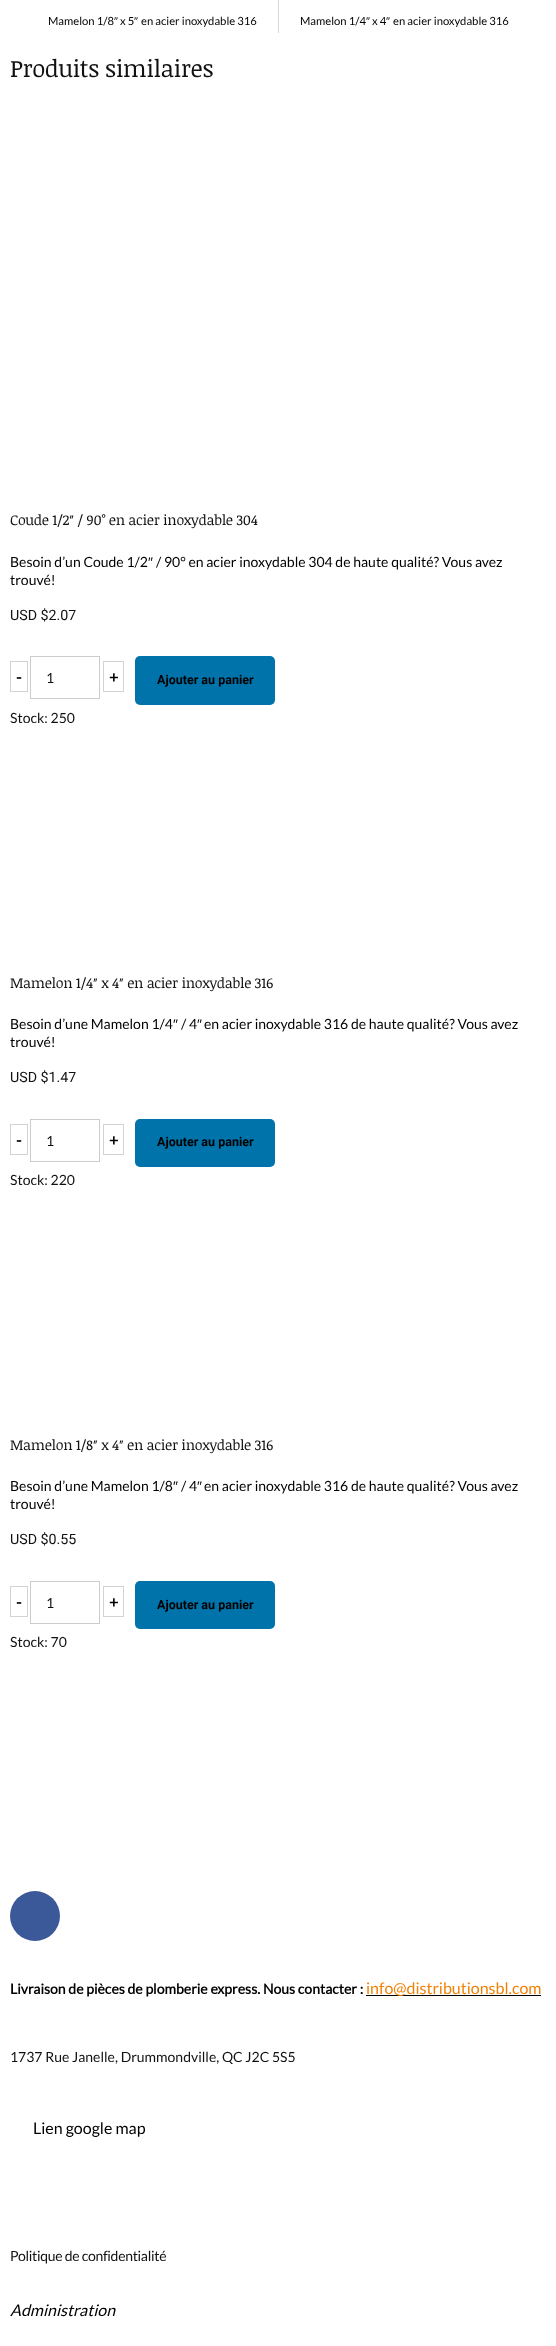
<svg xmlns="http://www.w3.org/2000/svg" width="556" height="2346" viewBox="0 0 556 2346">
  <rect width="100%" height="100%" fill="#ffffff"/>
  <text x="48" y="25" font-family="Lato" font-size="11.25" fill="#000000">Mamelon 1/8</text>
  <text x="114" y="25" font-family="Liberation Sans" font-size="11.25" fill="#000000">″</text>
  <text x="120" y="25" font-family="Lato" font-size="11.25" fill="#000000">x 5</text>
  <text x="134" y="25" font-family="Liberation Sans" font-size="11.25" fill="#000000">″</text>
  <text x="141" y="25" font-family="Lato" font-size="11.25" fill="#000000">en acier inoxydable 316</text>
  <rect x="278" y="0" width="1" height="33" fill="#d5d8dc"/>
  <text x="300" y="25" font-family="Lato" font-size="11.25" fill="#000000">Mamelon 1/4</text>
  <text x="366" y="25" font-family="Liberation Sans" font-size="11.25" fill="#000000">″</text>
  <text x="372" y="25" font-family="Lato" font-size="11.25" fill="#000000">x 4</text>
  <text x="386" y="25" font-family="Liberation Sans" font-size="11.25" fill="#000000">″</text>
  <text x="393" y="25" font-family="Lato" font-size="11.25" fill="#000000">en acier inoxydable 316</text>
  <text x="10" y="77" font-family="Noticia Text" font-size="24" letter-spacing="-0.5" fill="#111111">Produits similaires</text>
  <text x="10" y="525" font-family="Noticia Text" font-size="14.25" letter-spacing="-0.3" fill="#111111">Coude 1/2″ / 90° en acier inoxydable 304</text>
  <text x="10" y="567" font-family="Lato" font-size="14" fill="#000000">Besoin d’un Coude 1/2</text>
  <text x="148" y="567" font-family="Liberation Sans" font-size="14" fill="#000000">″</text>
  <text x="156" y="567" font-family="Lato" font-size="14" fill="#000000">/ 90° en acier inoxydable 304 de haute qualité? Vous avez</text>
  <text x="10" y="585" font-family="Lato" font-size="14" fill="#000000">trouvé!</text>
  <text x="10" y="620" font-family="Roboto" font-size="14.25" fill="#111111">USD $2.07</text>
  <rect x="10.5" y="661.5" width="17" height="30" fill="none" stroke="#d3d3d3"/>
  <text x="16" y="683" font-family="Lato" font-size="16" font-weight="bold" fill="#000000">-</text>
  <rect x="30.5" y="656.5" width="69" height="42" fill="none" stroke="#cccccc"/>
  <text x="46" y="683" font-family="Lato" font-size="14" fill="#111111">1</text>
  <rect x="103.5" y="661.5" width="20" height="30" fill="none" stroke="#d3d3d3"/>
  <text x="109" y="683" font-family="Lato" font-size="16" font-weight="bold" fill="#000000">+</text>
  <rect x="135" y="656" width="140" height="49" rx="5" fill="#0073aa"/>
  <text x="157" y="684" font-family="Roboto" font-size="12.5" font-weight="bold" fill="#000000">Ajouter au panier</text>
  <text x="10" y="723" font-family="Lato" font-size="14" fill="#111111">Stock: 250</text>
  <text x="10" y="988" font-family="Noticia Text" font-size="14.25" letter-spacing="-0.3" fill="#111111">Mamelon 1/4″ x 4″ en acier inoxydable 316</text>
  <text x="10" y="1029" font-family="Lato" font-size="14" fill="#000000">Besoin d’une Mamelon 1/4</text>
  <text x="173" y="1029" font-family="Liberation Sans" font-size="14" fill="#000000">″</text>
  <text x="181" y="1029" font-family="Lato" font-size="14" fill="#000000">/ 4</text>
  <text x="197" y="1029" font-family="Liberation Sans" font-size="14" fill="#000000">″</text>
  <text x="204" y="1029" font-family="Lato" font-size="14" fill="#000000">en acier inoxydable 316 de haute qualité? Vous avez</text>
  <text x="10" y="1047" font-family="Lato" font-size="14" fill="#000000">trouvé!</text>
  <text x="10" y="1082" font-family="Roboto" font-size="14.25" fill="#111111">USD $1.47</text>
  <rect x="10.5" y="1124.5" width="17" height="30" fill="none" stroke="#d3d3d3"/>
  <text x="16" y="1146" font-family="Lato" font-size="16" font-weight="bold" fill="#000000">-</text>
  <rect x="30.5" y="1119.5" width="69" height="42" fill="none" stroke="#cccccc"/>
  <text x="46" y="1146" font-family="Lato" font-size="14" fill="#111111">1</text>
  <rect x="103.5" y="1124.5" width="20" height="30" fill="none" stroke="#d3d3d3"/>
  <text x="109" y="1146" font-family="Lato" font-size="16" font-weight="bold" fill="#000000">+</text>
  <rect x="135" y="1119" width="140" height="48" rx="5" fill="#0073aa"/>
  <text x="157" y="1146" font-family="Roboto" font-size="12.5" font-weight="bold" fill="#000000">Ajouter au panier</text>
  <text x="10" y="1185" font-family="Lato" font-size="14" fill="#111111">Stock: 220</text>
  <text x="10" y="1450" font-family="Noticia Text" font-size="14.25" letter-spacing="-0.3" fill="#111111">Mamelon 1/8″ x 4″ en acier inoxydable 316</text>
  <text x="10" y="1491" font-family="Lato" font-size="14" fill="#000000">Besoin d’une Mamelon 1/8</text>
  <text x="173" y="1491" font-family="Liberation Sans" font-size="14" fill="#000000">″</text>
  <text x="181" y="1491" font-family="Lato" font-size="14" fill="#000000">/ 4</text>
  <text x="197" y="1491" font-family="Liberation Sans" font-size="14" fill="#000000">″</text>
  <text x="204" y="1491" font-family="Lato" font-size="14" fill="#000000">en acier inoxydable 316 de haute qualité? Vous avez</text>
  <text x="10" y="1509" font-family="Lato" font-size="14" fill="#000000">trouvé!</text>
  <text x="10" y="1544" font-family="Roboto" font-size="14.25" fill="#111111">USD $0.55</text>
  <rect x="10.5" y="1586.5" width="17" height="30" fill="none" stroke="#d3d3d3"/>
  <text x="16" y="1608" font-family="Lato" font-size="16" font-weight="bold" fill="#000000">-</text>
  <rect x="30.5" y="1581.5" width="69" height="42" fill="none" stroke="#cccccc"/>
  <text x="46" y="1608" font-family="Lato" font-size="14" fill="#111111">1</text>
  <rect x="103.5" y="1586.5" width="20" height="30" fill="none" stroke="#d3d3d3"/>
  <text x="109" y="1608" font-family="Lato" font-size="16" font-weight="bold" fill="#000000">+</text>
  <rect x="135" y="1581" width="140" height="48" rx="5" fill="#0073aa"/>
  <text x="157" y="1609" font-family="Roboto" font-size="12.5" font-weight="bold" fill="#000000">Ajouter au panier</text>
  <text x="10" y="1647" font-family="Lato" font-size="14" fill="#111111">Stock: 70</text>
  <circle cx="35" cy="1916" r="25" fill="#3b5998"/>
  <text x="10" y="1994" font-family="Lato" font-size="14" font-weight="bold" fill="#000000">Livraison de pièces de plomberie express. Nous contacter :</text>
  <rect x="366" y="1995" width="175" height="1" fill="#000000"/>
  <text x="366" y="1994" font-family="Lato" font-size="16" fill="#f18104">info@distributionsbl.com</text>
  <text x="10" y="2062" font-family="Lato" font-size="14" fill="#111111">1737 Rue Janelle, Drummondville, QC J2C 5S5</text>
  <text x="33" y="2134" font-family="Lato" font-size="16" fill="#000000">Lien google map</text>
  <text x="10" y="2261" font-family="Lato" font-size="14" letter-spacing="-0.3" fill="#111111">Politique de confidentialité</text>
  <text x="10" y="2316" font-family="Lato" font-size="16" font-style="italic" fill="#000000">Administration</text>
</svg>
